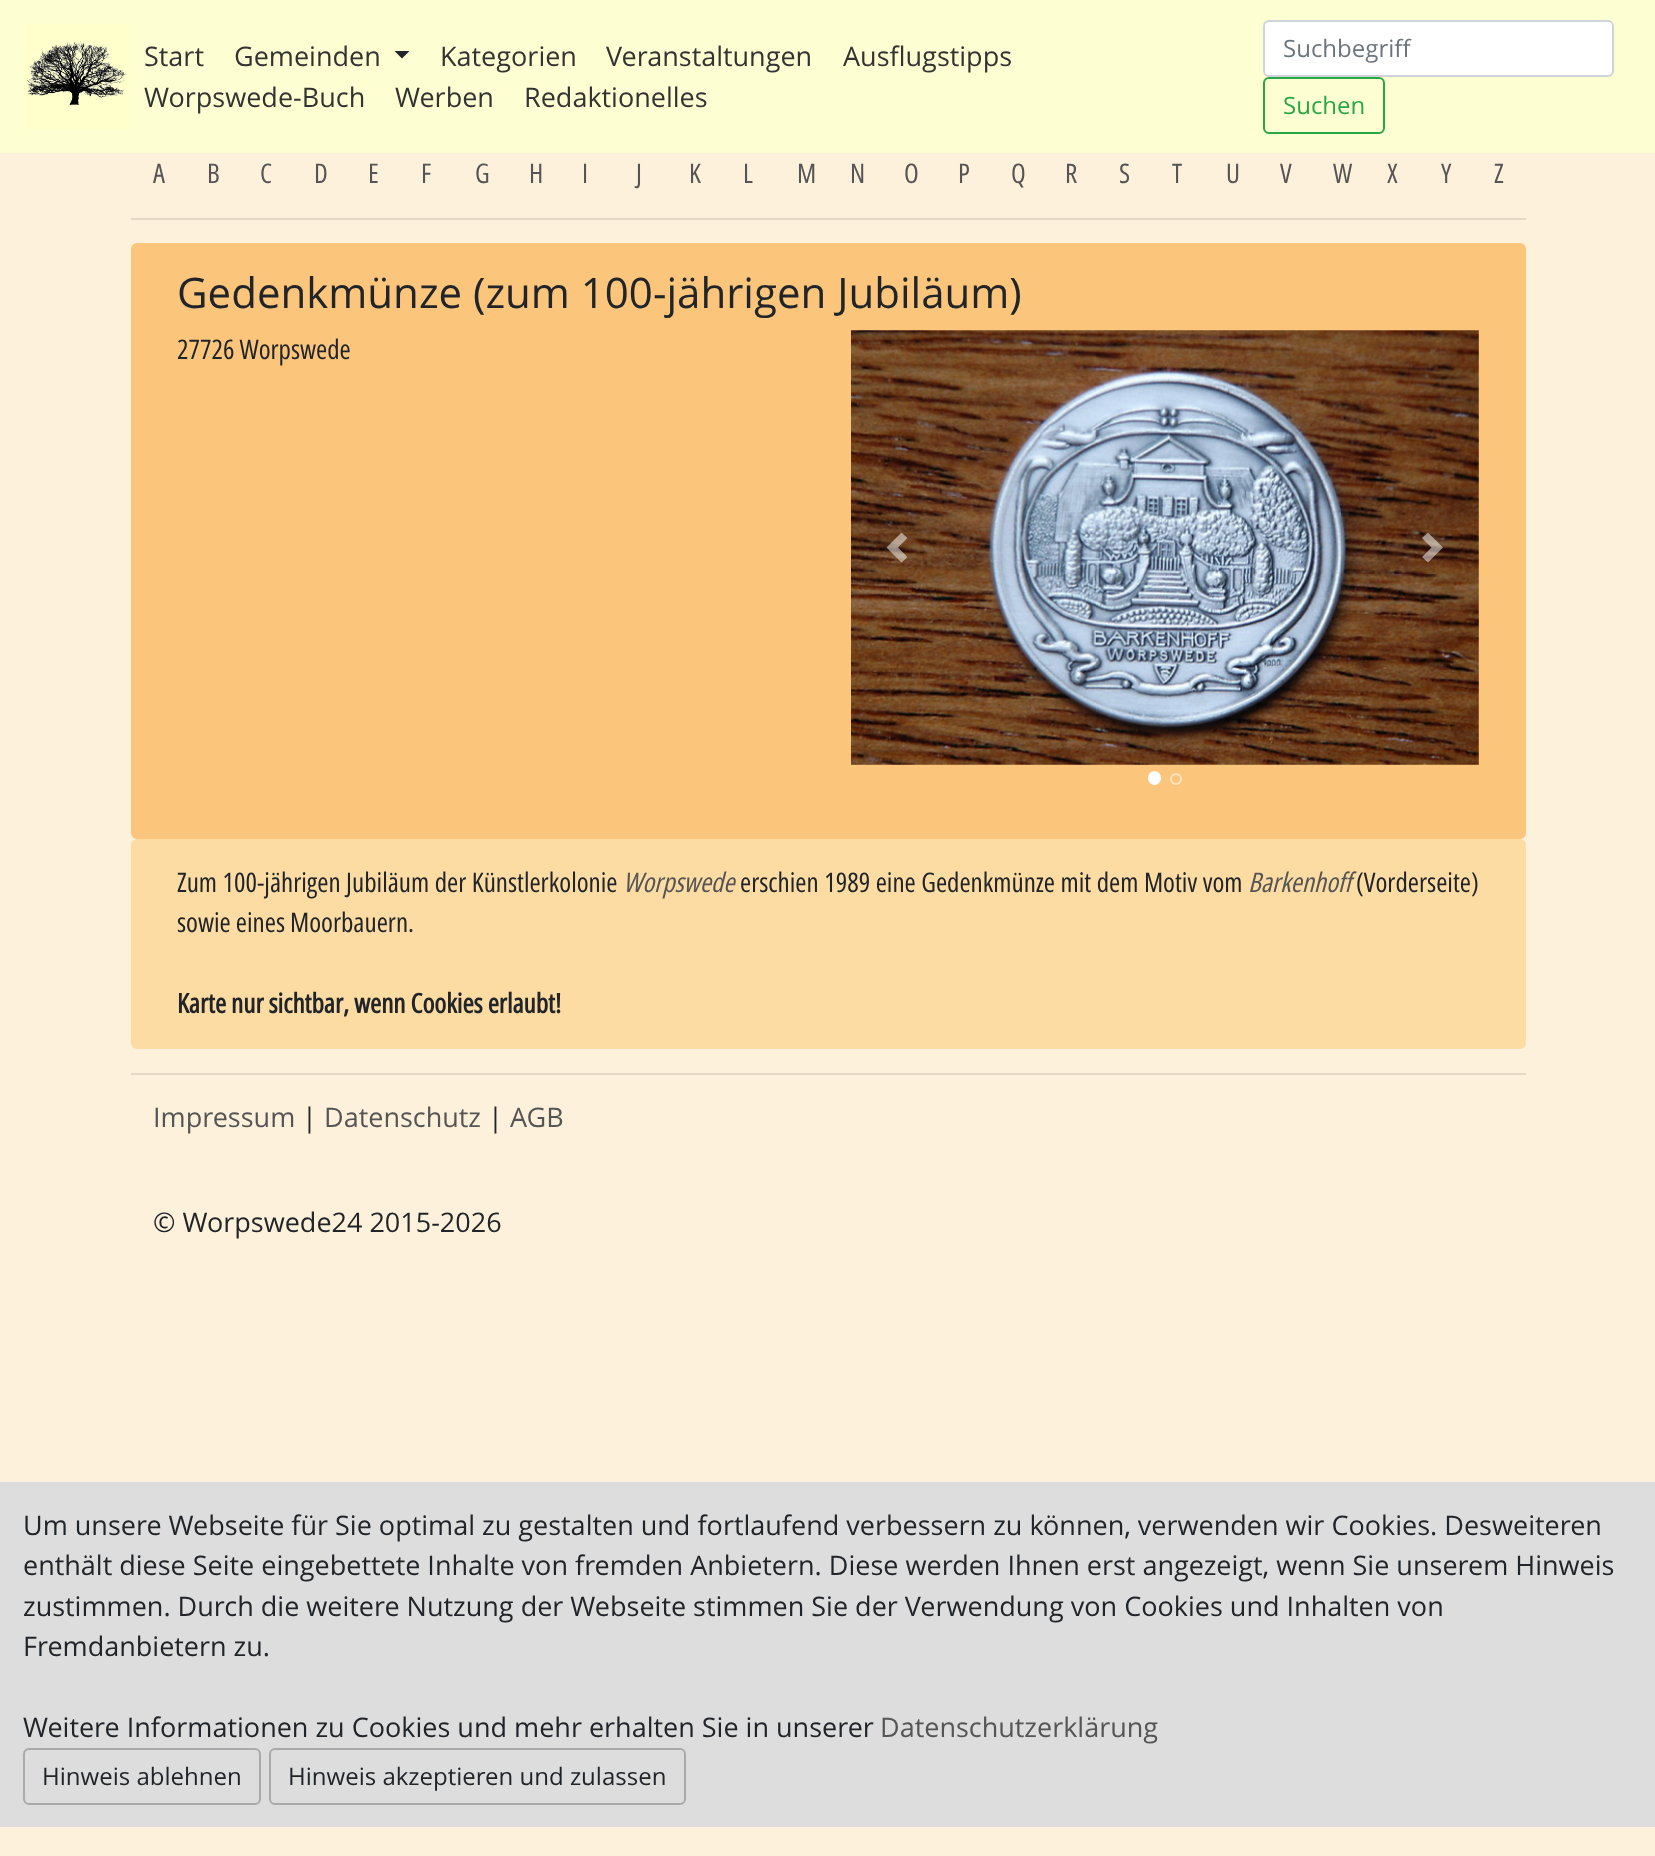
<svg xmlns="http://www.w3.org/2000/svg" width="1655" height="1856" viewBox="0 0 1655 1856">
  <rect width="100%" height="100%" fill="#fef1db"/>
  <rect x="0" y="0" width="1655" height="153" fill="#fefed3"/>
  <image x="24" y="24" width="105" height="105" href="img1.png"/>
  <text x="144" y="66" font-family="Open Sans" font-size="27" fill="#333333">Start</text>
  <text x="234" y="66" font-family="Open Sans" font-size="27" fill="#333333">Gemeinden</text>
  <path d="M394.5 51H409.5L402 58.5Z" fill="#212529"/>
  <text x="440" y="66" font-family="Open Sans" font-size="27" fill="#333333">Kategorien</text>
  <text x="606" y="66" font-family="Open Sans" font-size="27" fill="#333333">Veranstaltungen</text>
  <text x="843" y="66" font-family="Open Sans" font-size="27" fill="#333333">Ausflugstipps</text>
  <text x="144" y="107" font-family="Open Sans" font-size="27" fill="#333333">Worpswede-Buch</text>
  <text x="395" y="107" font-family="Open Sans" font-size="27" fill="#333333">Werben</text>
  <text x="524" y="107" font-family="Open Sans" font-size="27" fill="#333333">Redaktionelles</text>
  <rect x="1264" y="21" width="349" height="55" rx="5" fill="#ffffff" stroke="#ced4da" stroke-width="2"/>
  <text x="1283" y="57" font-family="Open Sans" font-size="24" fill="#6c757d">Suchbegriff</text>
  <rect x="1264" y="78" width="120" height="55" rx="5" fill="none" stroke="#28a745" stroke-width="2"/>
  <text x="1283" y="114" font-family="Open Sans" font-size="24" fill="#28a745">Suchen</text>
  <text x="153" y="183" font-family="Open Sans Condensed" font-size="27" fill="#555555">A</text>
  <text x="207" y="183" font-family="Open Sans Condensed" font-size="27" fill="#555555">B</text>
  <text x="260" y="183" font-family="Open Sans Condensed" font-size="27" fill="#555555">C</text>
  <text x="314" y="183" font-family="Open Sans Condensed" font-size="27" fill="#555555">D</text>
  <text x="368" y="183" font-family="Open Sans Condensed" font-size="27" fill="#555555">E</text>
  <text x="421" y="183" font-family="Open Sans Condensed" font-size="27" fill="#555555">F</text>
  <text x="475" y="183" font-family="Open Sans Condensed" font-size="27" fill="#555555">G</text>
  <text x="529" y="183" font-family="Open Sans Condensed" font-size="27" fill="#555555">H</text>
  <text x="582" y="183" font-family="Open Sans Condensed" font-size="27" fill="#555555">I</text>
  <text x="636" y="183" font-family="Open Sans Condensed" font-size="27" fill="#555555">J</text>
  <text x="689" y="183" font-family="Open Sans Condensed" font-size="27" fill="#555555">K</text>
  <text x="743" y="183" font-family="Open Sans Condensed" font-size="27" fill="#555555">L</text>
  <text x="797" y="183" font-family="Open Sans Condensed" font-size="27" fill="#555555">M</text>
  <text x="850" y="183" font-family="Open Sans Condensed" font-size="27" fill="#555555">N</text>
  <text x="904" y="183" font-family="Open Sans Condensed" font-size="27" fill="#555555">O</text>
  <text x="958" y="183" font-family="Open Sans Condensed" font-size="27" fill="#555555">P</text>
  <text x="1011" y="183" font-family="Open Sans Condensed" font-size="27" fill="#555555">Q</text>
  <text x="1065" y="183" font-family="Open Sans Condensed" font-size="27" fill="#555555">R</text>
  <text x="1119" y="183" font-family="Open Sans Condensed" font-size="27" fill="#555555">S</text>
  <text x="1172" y="183" font-family="Open Sans Condensed" font-size="27" fill="#555555">T</text>
  <text x="1226" y="183" font-family="Open Sans Condensed" font-size="27" fill="#555555">U</text>
  <text x="1280" y="183" font-family="Open Sans Condensed" font-size="27" fill="#555555">V</text>
  <text x="1333" y="183" font-family="Open Sans Condensed" font-size="27" fill="#555555">W</text>
  <text x="1387" y="183" font-family="Open Sans Condensed" font-size="27" fill="#555555">X</text>
  <text x="1441" y="183" font-family="Open Sans Condensed" font-size="27" fill="#555555">Y</text>
  <text x="1494" y="183" font-family="Open Sans Condensed" font-size="27" fill="#555555">Z</text>
  <rect x="131" y="218" width="1395" height="2" fill="#e5d9c5"/>
  <rect x="131" y="243" width="1395" height="596" rx="6" fill="#fbc57b"/>
  <text x="177" y="308" font-family="Open Sans" font-size="42" fill="#212529">Gedenkmünze (zum 100-jährigen Jubiläum)</text>
  <text x="177" y="359" font-family="Open Sans Condensed" font-size="27" fill="#212529">27726 Worpswede</text>
  <image x="851" y="330" width="628" height="435" href="img2.png"/>
  <path d="M901.5 532.5L886.5 547.5L901.5 562.5L907.5 557L898 547.5L907.5 538Z" fill="#ffffff" fill-opacity="0.5"/>
  <path d="M1428 532.5L1422 538L1431.5 547.5L1422 557L1428 562.5L1443 547.5Z" fill="#ffffff" fill-opacity="0.5"/>
  <rect x="1149" y="772" width="11" height="12" rx="5.5" fill="#ffffff" stroke="#ffffff" stroke-width="2"/>
  <circle cx="1176" cy="779" r="5" fill="none" stroke="#fde2bd" stroke-width="2"/>
  <rect x="131" y="839" width="1395" height="210" rx="6" fill="#fcdca3"/>
  <text x="177" y="892" word-spacing="0.5" font-family="Open Sans Condensed" font-size="27" fill="#212529">Zum 100-jährigen Jubiläum der Künstlerkolonie</text>
  <text x="623" y="892" font-family="Open Sans Condensed" font-size="27" font-style="italic" fill="#555555">Worpswede</text>
  <text x="740" y="892" word-spacing="0.5" font-family="Open Sans Condensed" font-size="27" fill="#212529">erschien 1989 eine Gedenkmünze mit dem Motiv vom</text>
  <text x="1248" y="892" font-family="Open Sans Condensed" font-size="27" font-style="italic" fill="#555555">Barkenhoff</text>
  <text x="1356" y="892" font-family="Open Sans Condensed" font-size="27" fill="#212529">(Vorderseite)</text>
  <text x="177" y="932" font-family="Open Sans Condensed" font-size="27" fill="#212529">sowie eines Moorbauern.</text>
  <text x="177" y="1013" font-family="Open Sans Condensed" font-size="27" font-weight="bold" fill="#212529">Karte nur sichtbar, wenn Cookies erlaubt!</text>
  <rect x="131" y="1073" width="1395" height="2" fill="#e5d9c5"/>
  <text x="153" y="1127" font-family="Open Sans" font-size="27" fill="#555555">Impressum</text>
  <text x="302" y="1127" font-family="Open Sans" font-size="27" fill="#212529">|</text>
  <text x="324" y="1127" font-family="Open Sans" font-size="27" fill="#555555">Datenschutz</text>
  <text x="488" y="1127" font-family="Open Sans" font-size="27" fill="#212529">|</text>
  <text x="510" y="1127" font-family="Open Sans" font-size="27" fill="#555555">AGB</text>
  <text x="153" y="1232" font-family="Open Sans" font-size="27" fill="#212529">© Worpswede24 2015-2026</text>
  <rect x="0" y="1482" width="1655" height="345" fill="#dddddd"/>
  <text x="23" y="1535" font-family="Open Sans" font-size="27" fill="#212529">Um unsere Webseite für Sie optimal zu gestalten und fortlaufend verbessern zu können, verwenden wir Cookies. Desweiteren</text>
  <text x="23" y="1575" font-family="Open Sans" font-size="27" fill="#212529">enthält diese Seite eingebettete Inhalte von fremden Anbietern. Diese werden Ihnen erst angezeigt, wenn Sie unserem Hinweis</text>
  <text x="23" y="1616" font-family="Open Sans" font-size="27" fill="#212529">zustimmen. Durch die weitere Nutzung der Webseite stimmen Sie der Verwendung von Cookies und Inhalten von</text>
  <text x="23" y="1656" font-family="Open Sans" font-size="27" fill="#212529">Fremdanbietern zu.</text>
  <text x="23" y="1737" font-family="Open Sans" font-size="27" fill="#212529">Weitere Informationen zu Cookies und mehr erhalten Sie in unserer</text>
  <text x="880" y="1737" font-family="Open Sans" font-size="27" fill="#555555">Datenschutzerklärung</text>
  <rect x="24" y="1749" width="236" height="55" rx="5" fill="none" stroke="#aaaaaa" stroke-width="2"/>
  <text x="42" y="1785" font-family="Open Sans" font-size="24" fill="#212529">Hinweis ablehnen</text>
  <rect x="270" y="1749" width="415" height="55" rx="5" fill="none" stroke="#aaaaaa" stroke-width="2"/>
  <text x="288" y="1785" font-family="Open Sans" font-size="24" fill="#212529">Hinweis akzeptieren und zulassen</text>
</svg>
